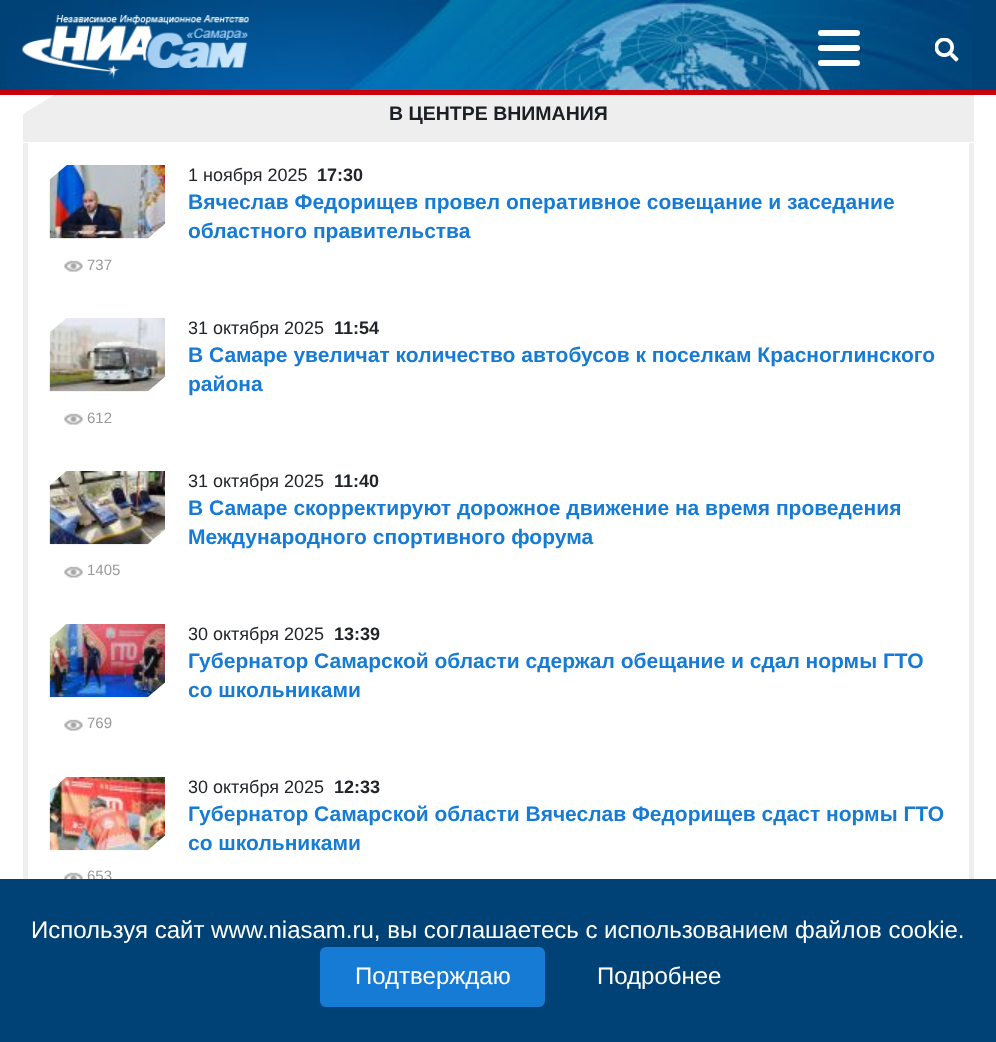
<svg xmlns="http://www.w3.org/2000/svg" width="996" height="1042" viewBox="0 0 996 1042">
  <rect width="100%" height="100%" fill="#ffffff"/>
  <path d="M23 114L69 86H974V142H23Z" fill="#eeeeee"/>
  <rect x="0" y="90" width="996" height="5" fill="#cb000d"/>
  <rect x="0" y="0" width="996" height="90" fill="#004276"/>
  <image x="7" y="0" width="965" height="90" href="img1.png"/>
  <image x="22" y="15" width="227" height="66" href="img2.png"/>
  <rect x="818" y="30" width="42" height="6" rx="3" fill="#ffffff"/>
  <rect x="818" y="45" width="42" height="6" rx="3" fill="#ffffff"/>
  <rect x="818" y="60" width="42" height="6" rx="3" fill="#ffffff"/>
  <image x="935" y="38" width="24" height="24" href="img3.png"/>
  <text x="389" y="120" font-family="Liberation Sans" font-size="19.5" font-weight="bold" fill="#1b1e24">В ЦЕНТРЕ ВНИМАНИЯ</text>
  <rect x="969" y="143" width="5" height="736" fill="#eeeeee"/>
  <rect x="23" y="143" width="5" height="736" fill="#eeeeee"/>
  <image x="49" y="165" width="116" height="74" href="img4.png"/>
  <text x="188" y="181" font-family="Liberation Sans" font-size="18" fill="#212529">1 ноября 2025</text>
  <text x="317" y="181" font-family="Liberation Sans" font-size="18" font-weight="bold" fill="#212529">17:30</text>
  <text x="188" y="209" font-family="Liberation Sans" font-size="21" font-weight="bold" fill="#167bd4">Вячеслав Федорищев провел оперативное совещание и заседание</text>
  <text x="188" y="238" font-family="Liberation Sans" font-size="21" font-weight="bold" fill="#167bd4">областного правительства</text>
  <image x="64" y="260" width="19" height="12" href="img5.png"/>
  <text x="87" y="270" font-family="Liberation Sans" font-size="15" fill="#999999">737</text>
  <image x="49" y="318" width="116" height="74" href="img6.png"/>
  <text x="188" y="334" font-family="Liberation Sans" font-size="18" fill="#212529">31 октября 2025</text>
  <text x="334" y="334" font-family="Liberation Sans" font-size="18" font-weight="bold" fill="#212529">11:54</text>
  <text x="188" y="362" font-family="Liberation Sans" font-size="21" font-weight="bold" fill="#167bd4">В Самаре увеличат количество автобусов к поселкам Красноглинского</text>
  <text x="188" y="391" font-family="Liberation Sans" font-size="21" font-weight="bold" fill="#167bd4">района</text>
  <image x="64" y="413" width="19" height="12" href="img5.png"/>
  <text x="87" y="423" font-family="Liberation Sans" font-size="15" fill="#999999">612</text>
  <image x="49" y="471" width="116" height="74" href="img7.png"/>
  <text x="188" y="487" font-family="Liberation Sans" font-size="18" fill="#212529">31 октября 2025</text>
  <text x="334" y="487" font-family="Liberation Sans" font-size="18" font-weight="bold" fill="#212529">11:40</text>
  <text x="188" y="515" font-family="Liberation Sans" font-size="21" font-weight="bold" fill="#167bd4">В Самаре скорректируют дорожное движение на время проведения</text>
  <text x="188" y="544" font-family="Liberation Sans" font-size="21" font-weight="bold" fill="#167bd4">Международного спортивного форума</text>
  <image x="64" y="566" width="19" height="12" href="img5.png"/>
  <text x="87" y="575" font-family="Liberation Sans" font-size="15" fill="#999999">1405</text>
  <image x="49" y="624" width="116" height="74" href="img8.png"/>
  <text x="188" y="640" font-family="Liberation Sans" font-size="18" fill="#212529">30 октября 2025</text>
  <text x="334" y="640" font-family="Liberation Sans" font-size="18" font-weight="bold" fill="#212529">13:39</text>
  <text x="188" y="668" font-family="Liberation Sans" font-size="21" font-weight="bold" fill="#167bd4">Губернатор Самарской области сдержал обещание и сдал нормы ГТО</text>
  <text x="188" y="697" font-family="Liberation Sans" font-size="21" font-weight="bold" fill="#167bd4">со школьниками</text>
  <image x="64" y="719" width="19" height="12" href="img5.png"/>
  <text x="87" y="728" font-family="Liberation Sans" font-size="15" fill="#999999">769</text>
  <image x="49" y="777" width="116" height="74" href="img9.png"/>
  <text x="188" y="793" font-family="Liberation Sans" font-size="18" fill="#212529">30 октября 2025</text>
  <text x="334" y="793" font-family="Liberation Sans" font-size="18" font-weight="bold" fill="#212529">12:33</text>
  <text x="188" y="821" font-family="Liberation Sans" font-size="21" font-weight="bold" fill="#167bd4">Губернатор Самарской области Вячеслав Федорищев сдаст нормы ГТО</text>
  <text x="188" y="850" font-family="Liberation Sans" font-size="21" font-weight="bold" fill="#167bd4">со школьниками</text>
  <image x="64" y="872" width="19" height="7" href="img10.png"/>
  <text x="87" y="881" font-family="Liberation Sans" font-size="15" fill="#999999">653</text>
  <rect x="0" y="879" width="996" height="163" fill="#004276"/>
  <text x="31" y="938" font-family="Liberation Sans" font-size="24" fill="#ffffff">Используя сайт www.niasam.ru, вы соглашаетесь с использованием файлов cookie.</text>
  <rect x="320" y="947" width="225" height="60" rx="6" fill="#167bd4"/>
  <text x="355" y="984" font-family="Liberation Sans" font-size="24" fill="#ffffff">Подтверждаю</text>
  <text x="597" y="984" font-family="Liberation Sans" font-size="24" fill="#ffffff">Подробнее</text>
</svg>
